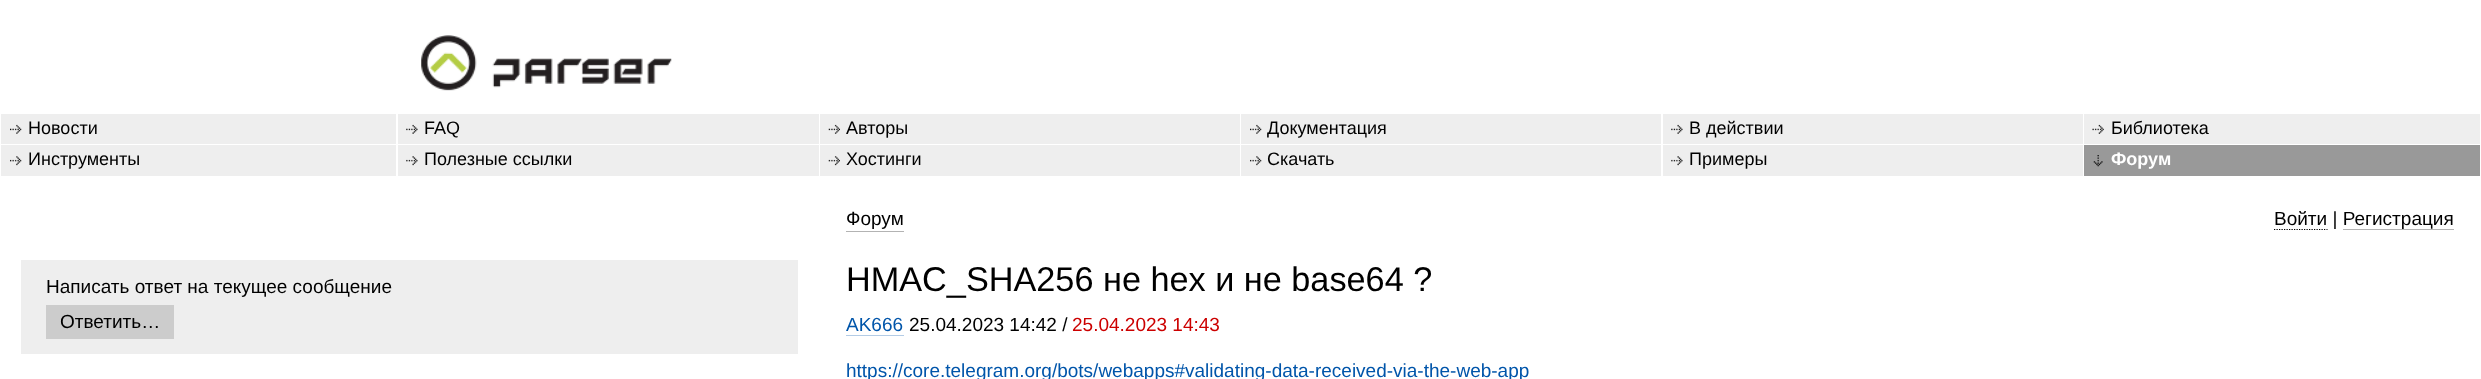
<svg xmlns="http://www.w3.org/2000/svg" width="2481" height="379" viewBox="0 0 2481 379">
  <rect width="100%" height="100%" fill="#ffffff"/>
  <image x="421" y="35" width="251" height="56" href="img1.png"/>
  <rect x="1" y="114" width="395" height="30" fill="#eeeeee"/>
  <image x="10" y="124" width="12" height="10" href="img2.png"/>
  <text x="28" y="134" font-family="Liberation Sans" font-size="18" fill="#000000">Новости</text>
  <rect x="398" y="114" width="421" height="30" fill="#eeeeee"/>
  <image x="406" y="124" width="12" height="10" href="img3.png"/>
  <text x="424" y="134" font-family="Liberation Sans" font-size="18" fill="#000000">FAQ</text>
  <rect x="820" y="114" width="420" height="30" fill="#eeeeee"/>
  <image x="828" y="124" width="12" height="10" href="img4.png"/>
  <text x="846" y="134" font-family="Liberation Sans" font-size="18" fill="#000000">Авторы</text>
  <rect x="1241" y="114" width="420" height="30" fill="#eeeeee"/>
  <image x="1250" y="124" width="12" height="10" href="img2.png"/>
  <text x="1267" y="134" font-family="Liberation Sans" font-size="18" fill="#000000">Документация</text>
  <rect x="1663" y="114" width="420" height="30" fill="#eeeeee"/>
  <image x="1671" y="124" width="12" height="10" href="img3.png"/>
  <text x="1689" y="134" font-family="Liberation Sans" font-size="18" fill="#000000">В действии</text>
  <rect x="2084" y="114" width="396" height="30" fill="#eeeeee"/>
  <image x="2092" y="124" width="12" height="10" href="img5.png"/>
  <text x="2111" y="134" font-family="Liberation Sans" font-size="18" fill="#000000">Библиотека</text>
  <rect x="1" y="145" width="395" height="31" fill="#eeeeee"/>
  <image x="10" y="156" width="12" height="10" href="img6.png"/>
  <text x="28" y="165" font-family="Liberation Sans" font-size="18" fill="#000000">Инструменты</text>
  <rect x="398" y="145" width="421" height="31" fill="#eeeeee"/>
  <image x="406" y="156" width="12" height="10" href="img7.png"/>
  <text x="424" y="165" font-family="Liberation Sans" font-size="18" fill="#000000">Полезные ссылки</text>
  <rect x="820" y="145" width="420" height="31" fill="#eeeeee"/>
  <image x="828" y="156" width="12" height="10" href="img8.png"/>
  <text x="846" y="165" font-family="Liberation Sans" font-size="18" fill="#000000">Хостинги</text>
  <rect x="1241" y="145" width="420" height="31" fill="#eeeeee"/>
  <image x="1250" y="156" width="12" height="10" href="img6.png"/>
  <text x="1267" y="165" font-family="Liberation Sans" font-size="18" fill="#000000">Скачать</text>
  <rect x="1663" y="145" width="420" height="31" fill="#eeeeee"/>
  <image x="1671" y="156" width="12" height="10" href="img7.png"/>
  <text x="1689" y="165" font-family="Liberation Sans" font-size="18" fill="#000000">Примеры</text>
  <rect x="2084" y="145" width="396" height="31" fill="#999999"/>
  <image x="2093" y="155" width="10" height="12" href="img9.png"/>
  <text x="2111" y="165" font-family="Liberation Sans" font-size="18" font-weight="bold" fill="#ffffff">Форум</text>
  <rect x="846" y="231" width="58" height="1" fill="#b3b3b3"/>
  <text x="846" y="225" font-family="Liberation Sans" font-size="19" fill="#000000">Форум</text>
  <path d="M2274 229.5H2327.5" fill="none" stroke="#000000" stroke-width="1.2" stroke-dasharray="1.25 1.25"/>
  <text x="2274" y="225" font-family="Liberation Sans" font-size="19" fill="#000000">Войти | Регистрация</text>
  <rect x="2343" y="229" width="111" height="1" fill="#b3b3b3"/>
  <rect x="21" y="260" width="777" height="94" fill="#eeeeee"/>
  <text x="46" y="293" font-family="Liberation Sans" font-size="19" fill="#000000">Написать ответ на текущее сообщение</text>
  <rect x="46" y="305" width="128" height="34" fill="#cccccc"/>
  <text x="60" y="328" font-family="Liberation Sans" font-size="19" fill="#000000">Ответить…</text>
  <text x="846" y="291" font-family="Liberation Sans" font-size="34.25" fill="#000000">HMAC_SHA256 не hex и не base64 ?</text>
  <text x="846" y="331" font-family="Liberation Sans" font-size="19" fill="#0055aa">AK666</text>
  <rect x="846" y="335" width="58" height="1" fill="#b3cce6"/>
  <text x="909" y="331" font-family="Liberation Sans" font-size="19" fill="#000000">25.04.2023 14:42 /</text>
  <text x="1072" y="331" font-family="Liberation Sans" font-size="19" fill="#cc0000">25.04.2023 14:43</text>
  <text x="846" y="377" font-family="Liberation Sans" font-size="19" fill="#0055aa">https://core.telegram.org/bots/webapps#validating-data-received-via-the-web-app</text>
</svg>
